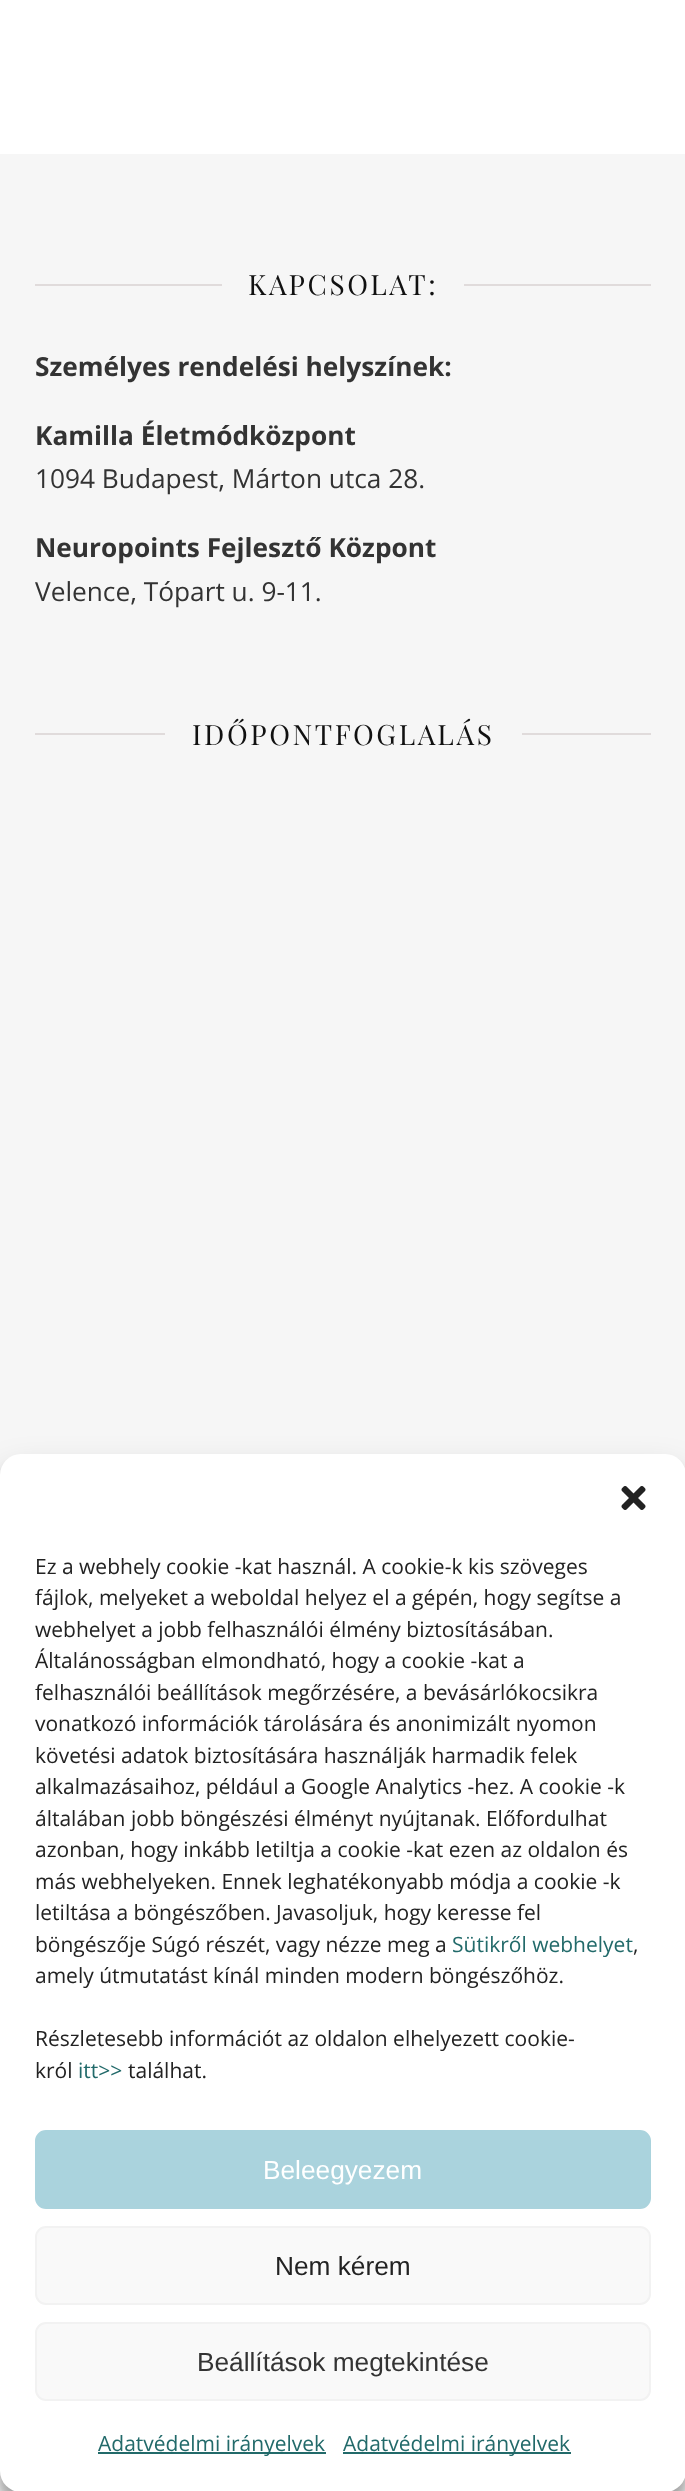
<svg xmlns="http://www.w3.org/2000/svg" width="685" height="2491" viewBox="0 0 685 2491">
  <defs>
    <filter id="blur1" x="-50%" y="-200%" width="200%" height="500%"><feGaussianBlur stdDeviation="5"/></filter>
    <filter id="blur2" x="-50%" y="-200%" width="200%" height="500%"><feGaussianBlur stdDeviation="17.5"/></filter>
  </defs>
  <rect width="100%" height="100%" fill="#ffffff"/>
  <rect x="0" y="154" width="685" height="2337" fill="#f6f6f6"/>
  <rect x="35" y="284" width="187" height="2" fill="#e0dbdb"/>
  <text x="248" y="295" font-family="Playfair Display" font-size="28" letter-spacing="2.6" fill="#111111">KAPCSOLAT:</text>
  <rect x="464" y="284" width="187" height="2" fill="#e0dbdb"/>
  <text x="35" y="376" font-family="Open Sans" font-size="26.25" font-weight="bold" fill="#333333">Személyes rendelési helyszínek:</text>
  <text x="35" y="445" font-family="Open Sans" font-size="26.25" font-weight="bold" fill="#333333">Kamilla Életmódközpont</text>
  <text x="35" y="488" font-family="Open Sans" font-size="26.25" fill="#333333">1094 Budapest, Márton utca 28.</text>
  <text x="35" y="557" font-family="Open Sans" font-size="26.25" font-weight="bold" fill="#333333">Neuropoints Fejlesztő Központ</text>
  <text x="35" y="601" font-family="Open Sans" font-size="26.25" fill="#333333">Velence, Tópart u. 9-11.</text>
  <rect x="35" y="733" width="130" height="2" fill="#e0dbdb"/>
  <text x="192" y="745" font-family="Playfair Display" font-size="28" letter-spacing="2.6" fill="#111111">IDŐPONTFOGLALÁS</text>
  <rect x="522" y="733" width="129" height="2" fill="#e0dbdb"/>
  <rect x="0" y="1465" width="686" height="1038" rx="21" fill="#000000" fill-opacity="0.23" filter="url(#blur1)"/>
  <rect x="0" y="1472" width="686" height="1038" rx="21" fill="#000000" fill-opacity="0.19" filter="url(#blur2)"/>
  <rect x="0" y="1454" width="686" height="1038" rx="21" fill="#ffffff"/>
  <image x="621" y="1486" width="25" height="24" href="img1.png"/>
  <text x="35" y="1574" font-family="Open Sans" font-size="21" fill="#222222">Ez a webhely cookie -kat használ. A cookie-k kis szöveges</text>
  <text x="35" y="1605" font-family="Open Sans" font-size="21" fill="#222222">fájlok, melyeket a weboldal helyez el a gépén, hogy segítse a</text>
  <text x="35" y="1637" font-family="Open Sans" font-size="21" fill="#222222">webhelyet a jobb felhasználói élmény biztosításában.</text>
  <text x="35" y="1668" font-family="Open Sans" font-size="21" fill="#222222">Általánosságban elmondható, hogy a cookie -kat a</text>
  <text x="35" y="1700" font-family="Open Sans" font-size="21" fill="#222222">felhasználói beállítások megőrzésére, a bevásárlókocsikra</text>
  <text x="35" y="1731" font-family="Open Sans" font-size="21" fill="#222222">vonatkozó információk tárolására és anonimizált nyomon</text>
  <text x="35" y="1763" font-family="Open Sans" font-size="21" fill="#222222">követési adatok biztosítására használják harmadik felek</text>
  <text x="35" y="1794" font-family="Open Sans" font-size="21" fill="#222222">alkalmazásaihoz, például a Google Analytics -hez. A cookie -k</text>
  <text x="35" y="1826" font-family="Open Sans" font-size="21" fill="#222222">általában jobb böngészési élményt nyújtanak. Előfordulhat</text>
  <text x="35" y="1857" font-family="Open Sans" font-size="21" fill="#222222">azonban, hogy inkább letiltja a cookie -kat ezen az oldalon és</text>
  <text x="35" y="1889" font-family="Open Sans" font-size="21" fill="#222222">más webhelyeken. Ennek leghatékonyabb módja a cookie -k</text>
  <text x="35" y="1920" font-family="Open Sans" font-size="21" fill="#222222">letiltása a böngészőben. Javasoljuk, hogy keresse fel</text>
  <text x="35" y="1952" font-family="Open Sans" font-size="21" fill="#222222">böngészője Súgó részét, vagy nézze meg a</text>
  <text x="452" y="1952" font-family="Open Sans" font-size="21" fill="#226a6a">Sütikről webhelyet</text>
  <text x="633" y="1952" font-family="Open Sans" font-size="21" fill="#222222">,</text>
  <text x="35" y="1983" font-family="Open Sans" font-size="21" fill="#222222">amely útmutatást kínál minden modern böngészőhöz.</text>
  <text x="35" y="2046" font-family="Open Sans" font-size="21" fill="#222222">Részletesebb információt az oldalon elhelyezett cookie-</text>
  <text x="35" y="2078" font-family="Open Sans" font-size="21" fill="#222222">król</text>
  <text x="78" y="2078" font-family="Open Sans" font-size="21" fill="#226a6a">itt&gt;&gt;</text>
  <text x="128" y="2078" font-family="Open Sans" font-size="21" fill="#222222">találhat.</text>
  <rect x="36" y="2131" width="614" height="77" rx="10" fill="#aad3dd" stroke="#aad3dd" stroke-width="2"/>
  <text x="263" y="2179" font-family="Liberation Sans" font-size="26.25" fill="#ffffff">Beleegyezem</text>
  <rect x="36" y="2227" width="614" height="77" rx="10" fill="#f9f9f9" stroke="#f2f2f2" stroke-width="2"/>
  <text x="275" y="2275" font-family="Liberation Sans" font-size="26.25" fill="#222222">Nem kérem</text>
  <rect x="36" y="2323" width="614" height="77" rx="10" fill="#f9f9f9" stroke="#f2f2f2" stroke-width="2"/>
  <text x="197" y="2371" font-family="Liberation Sans" font-size="26.25" fill="#333333">Beállítások megtekintése</text>
  <rect x="98" y="2452" width="228" height="2" fill="#226a6a"/>
  <text x="98" y="2451" font-family="Open Sans" font-size="21" fill="#226a6a">Adatvédelmi irányelvek</text>
  <rect x="343" y="2452" width="228" height="2" fill="#226a6a"/>
  <text x="343" y="2451" font-family="Open Sans" font-size="21" fill="#226a6a">Adatvédelmi irányelvek</text>
</svg>
